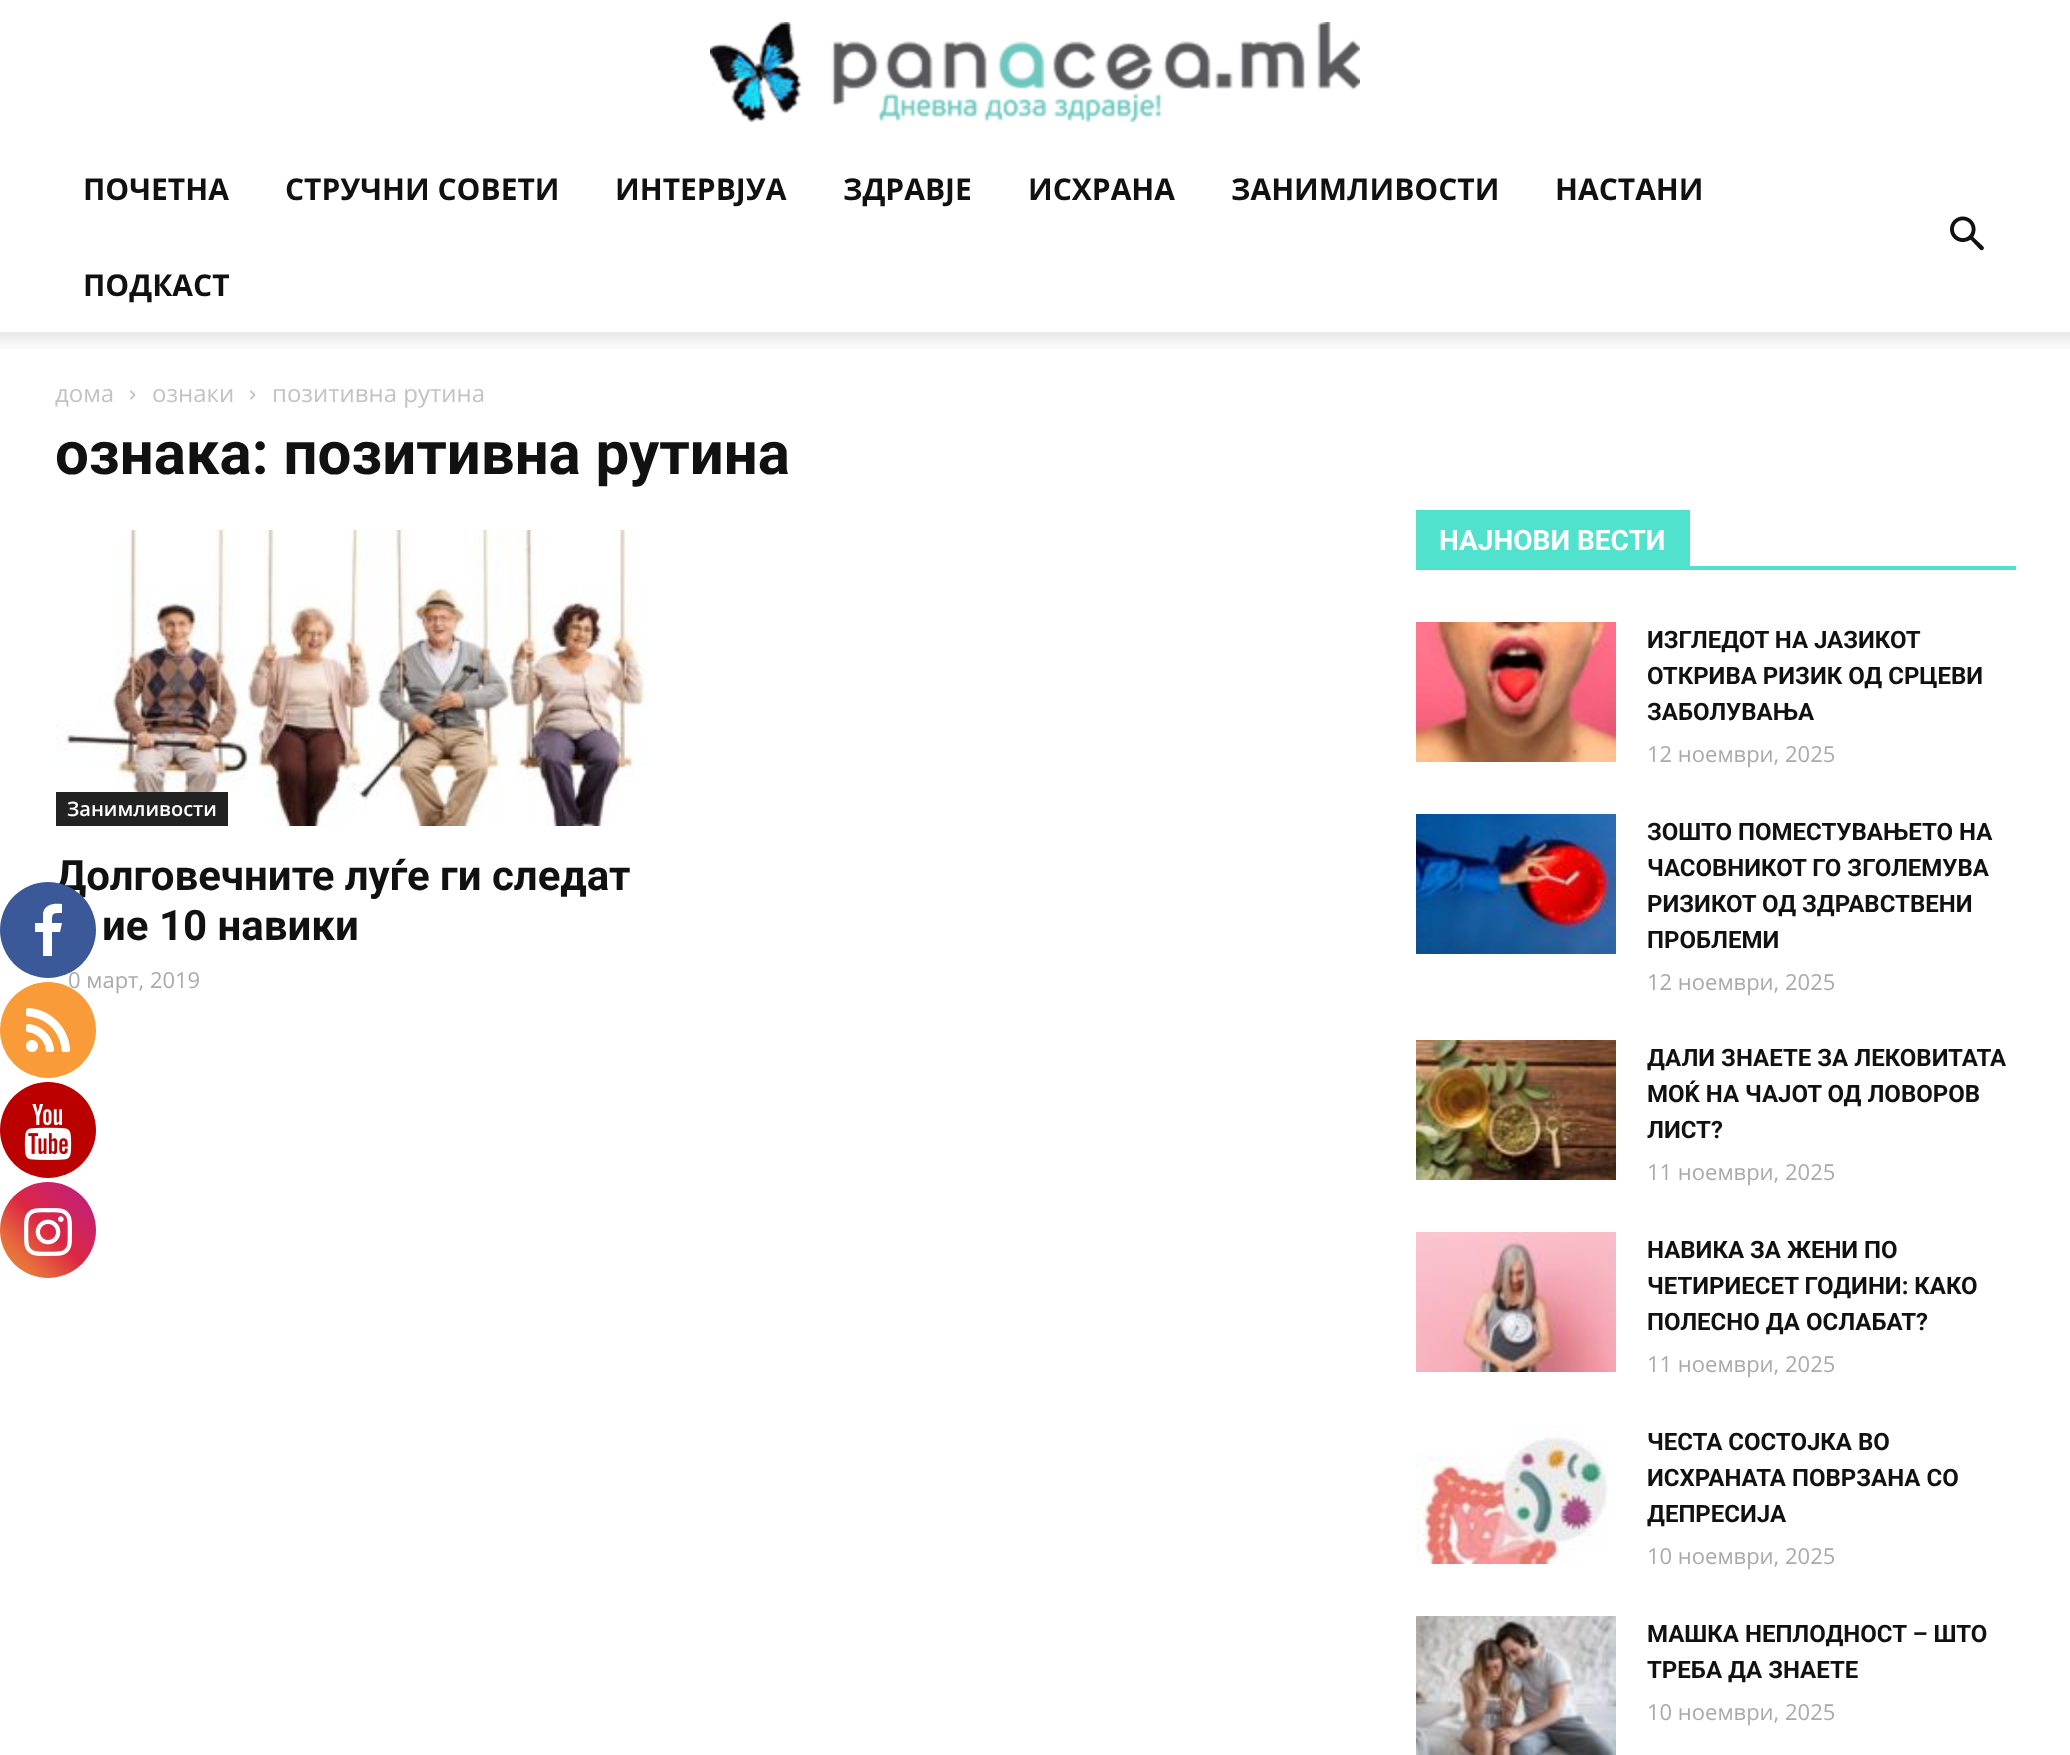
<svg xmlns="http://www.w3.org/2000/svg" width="2070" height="1755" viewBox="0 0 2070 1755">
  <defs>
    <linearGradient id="g1" gradientUnits="userSpaceOnUse" x1="0" y1="1278" x2="96" y2="1182"><stop offset="0" stop-color="#f09433"/><stop offset="0.25" stop-color="#e6683c"/><stop offset="0.5" stop-color="#dc2743"/><stop offset="0.75" stop-color="#cc2366"/><stop offset="1" stop-color="#bc1888"/></linearGradient>
  </defs>
  <rect width="100%" height="100%" fill="#ffffff"/>
  <text x="55" y="890" font-family="Roboto" font-size="42" font-weight="bold" fill="#111111">Долговечните луѓе ги следат</text>
  <text x="68" y="988" font-family="Open Sans" font-size="22" fill="#aaaaaa">0 март, 2019</text>
  <circle cx="48" cy="930" r="48" fill="#3b5998"/>
  <path d="M62 904V913C52 913 52 913 52 923H62L60 932H52V956H43V932H35V923H43V913C45 904 54 903 62 904Z" fill="#ffffff"/>
  <circle cx="48" cy="1030" r="48" fill="#fa9b39"/>
  <image x="26" y="1008" width="44" height="44" href="img1.png"/>
  <circle cx="48" cy="1130" r="48" fill="#bb0000"/>
  <image x="24" y="1104" width="48" height="56" href="img2.png"/>
  <circle cx="48" cy="1230" r="48" fill="url(#g1)"/>
  <image x="24" y="1208" width="48" height="48" href="img3.png"/>
  <image x="710" y="22" width="650" height="100" href="img4.png"/>
  <text x="83" y="200" font-family="Open Sans" font-size="30" font-weight="bold" fill="#111111">ПОЧЕТНА</text>
  <text x="285" y="200" font-family="Open Sans" font-size="30" font-weight="bold" fill="#111111">СТРУЧНИ СОВЕТИ</text>
  <text x="615" y="200" font-family="Open Sans" font-size="30" font-weight="bold" fill="#111111">ИНТЕРВЈУА</text>
  <text x="843" y="200" font-family="Open Sans" font-size="30" font-weight="bold" fill="#111111">ЗДРАВЈЕ</text>
  <text x="1028" y="200" font-family="Open Sans" font-size="30" font-weight="bold" fill="#111111">ИСХРАНА</text>
  <text x="1231" y="200" font-family="Open Sans" font-size="30" font-weight="bold" fill="#111111">ЗАНИМЛИВОСТИ</text>
  <text x="1555" y="200" font-family="Open Sans" font-size="30" font-weight="bold" fill="#111111">НАСТАНИ</text>
  <text x="83" y="296" font-family="Open Sans" font-size="30" font-weight="bold" fill="#111111">ПОДКАСТ</text>
  <image x="1950" y="216" width="34" height="35" href="img5.png"/>
  <image x="0" y="332" width="2070" height="17" href="img6.png"/>
  <text x="55" y="402" font-family="Open Sans" font-size="24" fill="#c3c3c3">дома</text>
  <image x="130" y="390" width="6" height="10" href="img7.png"/>
  <text x="152" y="402" font-family="Open Sans" font-size="24" fill="#c3c3c3">ознаки</text>
  <image x="250" y="390" width="6" height="10" href="img7.png"/>
  <text x="272" y="402" font-family="Open Sans" font-size="24" fill="#c3c3c3">позитивна рутина</text>
  <text x="55" y="474" font-family="Roboto" font-size="60" font-weight="bold" fill="#111111">ознака: позитивна рутина</text>
  <image x="56" y="530" width="592" height="296" href="img8.png"/>
  <rect x="56" y="792" width="172" height="34" fill="#222222"/>
  <text x="67" y="816" font-family="Open Sans" font-size="20" font-weight="600" fill="#ffffff">Занимливости</text>
  <text x="102" y="940" font-family="Roboto" font-size="42" font-weight="bold" fill="#111111">ие 10 навики</text>
  <rect x="1416" y="566" width="600" height="4" fill="#51e2cd"/>
  <rect x="1416" y="510" width="274" height="56" fill="#51e2cd"/>
  <text x="1439" y="550" font-family="Roboto" font-size="28" font-weight="bold" fill="#ffffff">НАЈНОВИ ВЕСТИ</text>
  <image x="1416" y="622" width="200" height="140" href="img9.png"/>
  <text x="1647" y="648" font-family="Roboto" font-size="24" font-weight="bold" fill="#111111">ИЗГЛЕДОТ НА ЈАЗИКОТ</text>
  <text x="1647" y="684" font-family="Roboto" font-size="24" font-weight="bold" fill="#111111">ОТКРИВА РИЗИК ОД СРЦЕВИ</text>
  <text x="1647" y="720" font-family="Roboto" font-size="24" font-weight="bold" fill="#111111">ЗАБОЛУВАЊА</text>
  <text x="1647" y="762" font-family="Open Sans" font-size="22" fill="#aaaaaa">12 ноември, 2025</text>
  <image x="1416" y="814" width="200" height="140" href="img10.png"/>
  <text x="1647" y="840" font-family="Roboto" font-size="24" font-weight="bold" fill="#111111">ЗОШТО ПОМЕСТУВАЊЕТО НА</text>
  <text x="1647" y="876" font-family="Roboto" font-size="24" font-weight="bold" fill="#111111">ЧАСОВНИКОТ ГО ЗГОЛЕМУВА</text>
  <text x="1647" y="912" font-family="Roboto" font-size="24" font-weight="bold" fill="#111111">РИЗИКОТ ОД ЗДРАВСТВЕНИ</text>
  <text x="1647" y="948" font-family="Roboto" font-size="24" font-weight="bold" fill="#111111">ПРОБЛЕМИ</text>
  <text x="1647" y="990" font-family="Open Sans" font-size="22" fill="#aaaaaa">12 ноември, 2025</text>
  <image x="1416" y="1040" width="200" height="140" href="img11.png"/>
  <text x="1647" y="1066" font-family="Roboto" font-size="24" font-weight="bold" fill="#111111">ДАЛИ ЗНАЕТЕ ЗА ЛЕКОВИТАТА</text>
  <text x="1647" y="1102" font-family="Roboto" font-size="24" font-weight="bold" fill="#111111">МОЌ НА ЧАЈОТ ОД ЛОВОРОВ</text>
  <text x="1647" y="1138" font-family="Roboto" font-size="24" font-weight="bold" fill="#111111">ЛИСТ?</text>
  <text x="1647" y="1180" font-family="Open Sans" font-size="22" fill="#aaaaaa">11 ноември, 2025</text>
  <image x="1416" y="1232" width="200" height="140" href="img12.png"/>
  <text x="1647" y="1258" font-family="Roboto" font-size="24" font-weight="bold" fill="#111111">НАВИКА ЗА ЖЕНИ ПО</text>
  <text x="1647" y="1294" font-family="Roboto" font-size="24" font-weight="bold" fill="#111111">ЧЕТИРИЕСЕТ ГОДИНИ: КАКО</text>
  <text x="1647" y="1330" font-family="Roboto" font-size="24" font-weight="bold" fill="#111111">ПОЛЕСНО ДА ОСЛАБАТ?</text>
  <text x="1647" y="1372" font-family="Open Sans" font-size="22" fill="#aaaaaa">11 ноември, 2025</text>
  <image x="1416" y="1424" width="192" height="140" href="img13.png"/>
  <text x="1647" y="1450" font-family="Roboto" font-size="24" font-weight="bold" fill="#111111">ЧЕСТА СОСТОЈКА ВО</text>
  <text x="1647" y="1486" font-family="Roboto" font-size="24" font-weight="bold" fill="#111111">ИСХРАНАТА ПОВРЗАНА СО</text>
  <text x="1647" y="1522" font-family="Roboto" font-size="24" font-weight="bold" fill="#111111">ДЕПРЕСИЈА</text>
  <text x="1647" y="1564" font-family="Open Sans" font-size="22" fill="#aaaaaa">10 ноември, 2025</text>
  <image x="1416" y="1616" width="200" height="139" href="img14.png"/>
  <text x="1647" y="1642" font-family="Roboto" font-size="24" font-weight="bold" fill="#111111">МАШКА НЕПЛОДНОСТ – ШТО</text>
  <text x="1647" y="1678" font-family="Roboto" font-size="24" font-weight="bold" fill="#111111">ТРЕБА ДА ЗНАЕТЕ</text>
  <text x="1647" y="1720" font-family="Open Sans" font-size="22" fill="#aaaaaa">10 ноември, 2025</text>
</svg>
